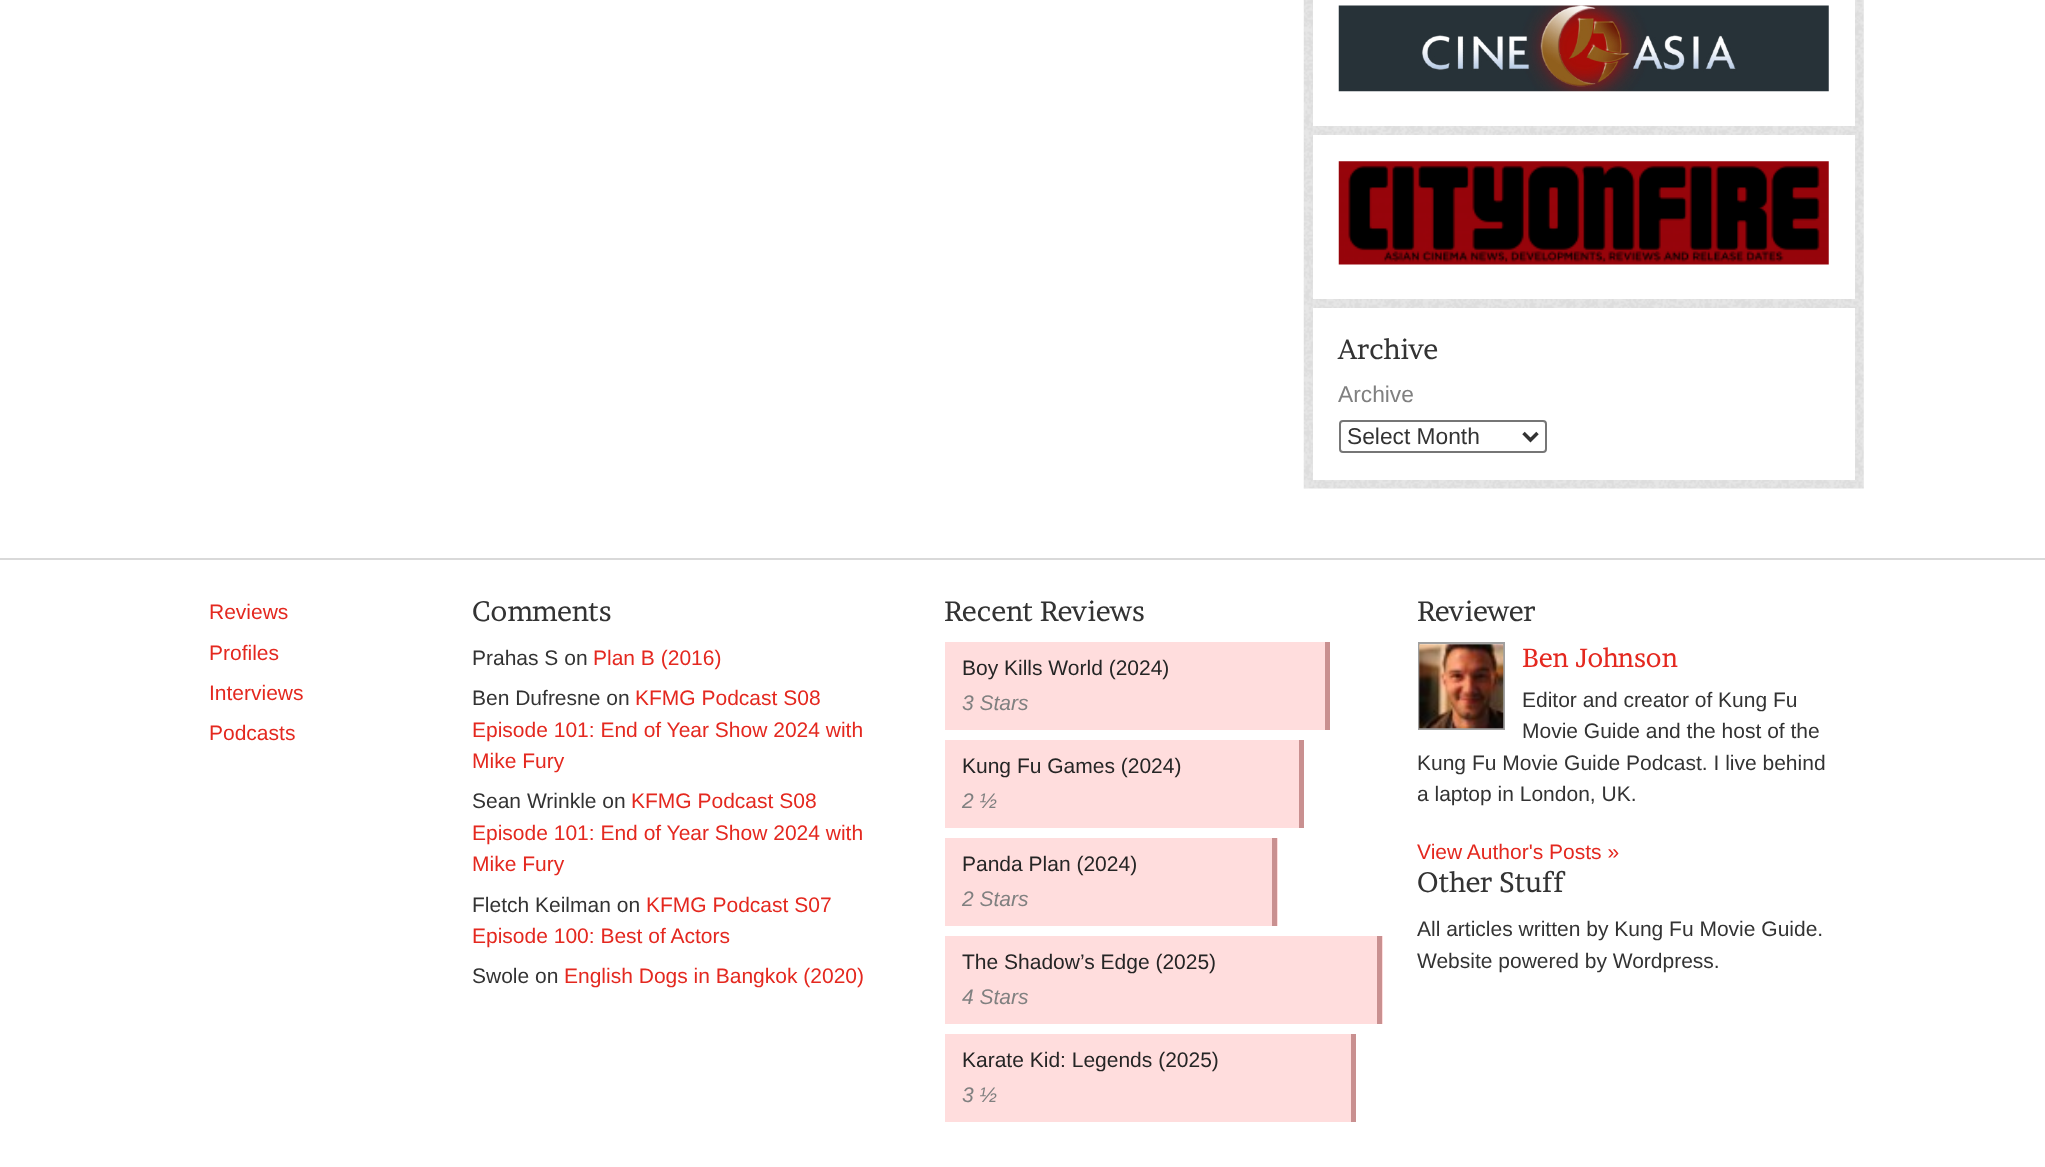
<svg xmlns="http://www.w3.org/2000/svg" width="2045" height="1167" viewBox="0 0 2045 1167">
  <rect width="100%" height="100%" fill="#ffffff"/>
  <rect x="0" y="558" width="2045" height="2" fill="#d9d9d9"/>
  <image x="1303" y="0" width="561" height="489" href="img1.png"/>
  <rect x="1313" y="0" width="542" height="126" fill="#ffffff"/>
  <image x="1338" y="5" width="491" height="87" href="img2.png"/>
  <rect x="1313" y="135" width="542" height="164" fill="#ffffff"/>
  <image x="1338" y="161" width="491" height="104" href="img3.png"/>
  <rect x="1313" y="308" width="542" height="172" fill="#ffffff"/>
  <text x="1338" y="359" font-family="Brawler" font-size="28" fill="#333333">Archive</text>
  <text x="1338" y="402" font-family="Liberation Sans" font-size="22.75" fill="#808080">Archive</text>
  <rect x="1340" y="421" width="206" height="31" rx="3" fill="none" stroke="#767676" stroke-width="2"/>
  <path d="M1523.5 433L1530.5 440L1537.5 433" fill="none" stroke="#333333" stroke-width="3.5"/>
  <text x="1347" y="444" font-family="Liberation Sans" font-size="22.75" fill="#333333">Select Month</text>
  <text x="209" y="619" font-family="Liberation Sans" font-size="21" fill="#e4281f">Reviews</text>
  <text x="209" y="660" font-family="Liberation Sans" font-size="21" fill="#e4281f">Profiles</text>
  <text x="209" y="700" font-family="Liberation Sans" font-size="21" fill="#e4281f">Interviews</text>
  <text x="209" y="740" font-family="Liberation Sans" font-size="21" fill="#e4281f">Podcasts</text>
  <text x="472" y="621" font-family="Brawler" font-size="28" fill="#333333">Comments</text>
  <text x="472" y="665" font-family="Liberation Sans" font-size="21" fill="#333333">Prahas S on</text>
  <text x="593" y="665" font-family="Liberation Sans" font-size="21" fill="#e4281f">Plan B (2016)</text>
  <text x="472" y="705" font-family="Liberation Sans" font-size="21" fill="#333333">Ben Dufresne on</text>
  <text x="635" y="705" font-family="Liberation Sans" font-size="21" fill="#e4281f">KFMG Podcast S08</text>
  <text x="472" y="737" font-family="Liberation Sans" font-size="21" fill="#e4281f">Episode 101: End of Year Show 2024 with</text>
  <text x="472" y="768" font-family="Liberation Sans" font-size="21" fill="#e4281f">Mike Fury</text>
  <text x="472" y="808" font-family="Liberation Sans" font-size="21" fill="#333333">Sean Wrinkle on</text>
  <text x="631" y="808" font-family="Liberation Sans" font-size="21" fill="#e4281f">KFMG Podcast S08</text>
  <text x="472" y="840" font-family="Liberation Sans" font-size="21" fill="#e4281f">Episode 101: End of Year Show 2024 with</text>
  <text x="472" y="871" font-family="Liberation Sans" font-size="21" fill="#e4281f">Mike Fury</text>
  <text x="472" y="912" font-family="Liberation Sans" font-size="21" fill="#333333">Fletch Keilman on</text>
  <text x="646" y="912" font-family="Liberation Sans" font-size="21" fill="#e4281f">KFMG Podcast S07</text>
  <text x="472" y="943" font-family="Liberation Sans" font-size="21" fill="#e4281f">Episode 100: Best of Actors</text>
  <text x="472" y="983" font-family="Liberation Sans" font-size="21" fill="#333333">Swole on</text>
  <text x="564" y="983" font-family="Liberation Sans" font-size="21" fill="#e4281f">English Dogs in Bangkok (2020)</text>
  <text x="944" y="621" font-family="Brawler" font-size="28" fill="#333333">Recent Reviews</text>
  <rect x="945" y="642" width="380" height="88" fill="#ffdddd"/>
  <rect x="1325" y="642" width="5" height="88" fill="#c99090"/>
  <text x="962" y="675" font-family="Liberation Sans" font-size="21" fill="#252525">Boy Kills World (2024)</text>
  <text x="962" y="710" font-family="Liberation Sans" font-size="21" font-style="italic" fill="#808080">3 Stars</text>
  <rect x="945" y="740" width="354" height="88" fill="#ffdddd"/>
  <rect x="1299" y="740" width="5" height="88" fill="#c99090"/>
  <text x="962" y="773" font-family="Liberation Sans" font-size="21" fill="#252525">Kung Fu Games (2024)</text>
  <text x="962" y="808" font-family="Liberation Sans" font-size="21" font-style="italic" fill="#808080">2 ½</text>
  <rect x="945" y="838" width="333" height="88" fill="#ffdddd"/>
  <rect x="1272" y="838" width="5" height="88" fill="#c99090"/>
  <text x="962" y="871" font-family="Liberation Sans" font-size="21" fill="#252525">Panda Plan (2024)</text>
  <text x="962" y="906" font-family="Liberation Sans" font-size="21" font-style="italic" fill="#808080">2 Stars</text>
  <rect x="945" y="936" width="438" height="88" fill="#ffdddd"/>
  <rect x="1377" y="936" width="5" height="88" fill="#c99090"/>
  <text x="962" y="969" font-family="Liberation Sans" font-size="21" fill="#252525">The Shadow’s Edge (2025)</text>
  <text x="962" y="1004" font-family="Liberation Sans" font-size="21" font-style="italic" fill="#808080">4 Stars</text>
  <rect x="945" y="1034" width="406" height="88" fill="#ffdddd"/>
  <rect x="1351" y="1034" width="5" height="88" fill="#c99090"/>
  <text x="962" y="1067" font-family="Liberation Sans" font-size="21" fill="#252525">Karate Kid: Legends (2025)</text>
  <text x="962" y="1102" font-family="Liberation Sans" font-size="21" font-style="italic" fill="#808080">3 ½</text>
  <text x="1417" y="621" font-family="Brawler" font-size="28" fill="#333333">Reviewer</text>
  <rect x="1419" y="643" width="85" height="86" fill="none" stroke="#a0a0a0" stroke-width="2"/>
  <image x="1419" y="644" width="85" height="85" href="img4.png"/>
  <text x="1522" y="667" font-family="Brawler" font-size="26.25" fill="#e4281f">Ben Johnson</text>
  <text x="1522" y="707" font-family="Liberation Sans" font-size="21" fill="#333333">Editor and creator of Kung Fu</text>
  <text x="1522" y="738" font-family="Liberation Sans" font-size="21" fill="#333333">Movie Guide and the host of the</text>
  <text x="1417" y="770" font-family="Liberation Sans" font-size="21" fill="#333333">Kung Fu Movie Guide Podcast. I live behind</text>
  <text x="1417" y="801" font-family="Liberation Sans" font-size="21" fill="#333333">a laptop in London, UK.</text>
  <text x="1417" y="859" font-family="Liberation Sans" font-size="21" fill="#e4281f">View Author's Posts »</text>
  <text x="1417" y="892" font-family="Brawler" font-size="28" fill="#333333">Other Stuff</text>
  <text x="1417" y="936" font-family="Liberation Sans" font-size="21" fill="#333333">All articles written by Kung Fu Movie Guide.</text>
  <text x="1417" y="968" font-family="Liberation Sans" font-size="21" fill="#333333">Website powered by Wordpress.</text>
</svg>
